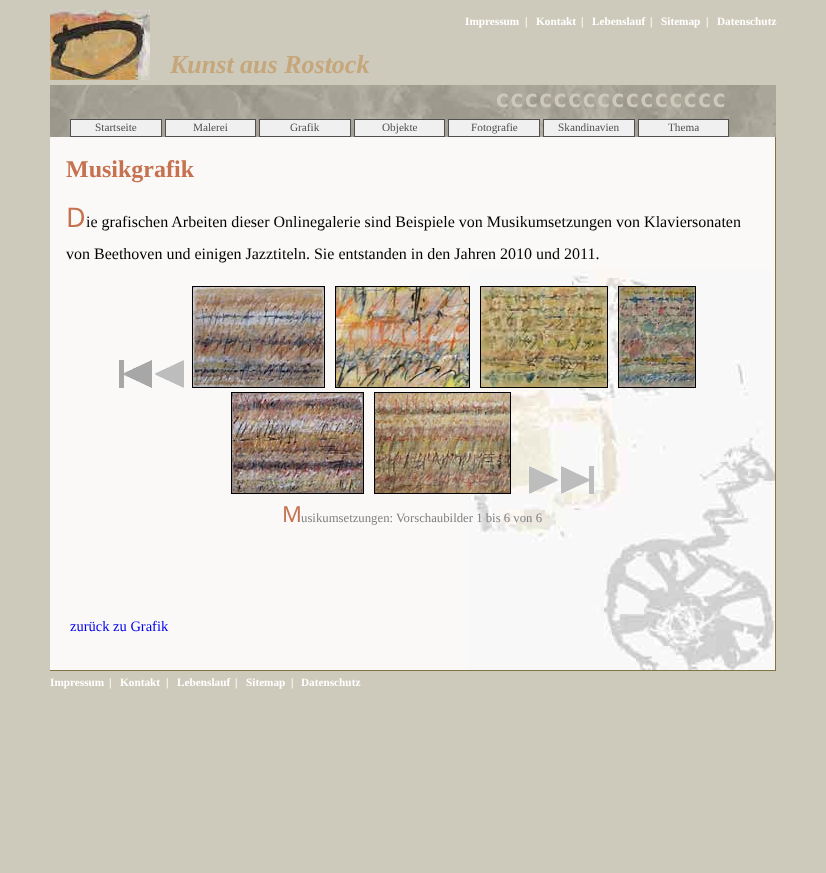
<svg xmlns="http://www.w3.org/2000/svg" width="826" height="873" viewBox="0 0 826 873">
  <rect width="100%" height="100%" fill="#cecabb"/>
  <image x="50" y="10" width="100" height="70" href="img1.png"/>
  <text x="465" y="25" font-family="Liberation Serif" font-size="11.25" font-weight="bold" fill="#ffffff">Impressum</text>
  <text x="525" y="25" font-family="Liberation Serif" font-size="11.25" font-weight="bold" fill="#ffffff">|</text>
  <text x="536" y="25" font-family="Liberation Serif" font-size="11.25" font-weight="bold" fill="#ffffff">Kontakt</text>
  <text x="581" y="25" font-family="Liberation Serif" font-size="11.25" font-weight="bold" fill="#ffffff">|</text>
  <text x="592" y="25" font-family="Liberation Serif" font-size="11.25" font-weight="bold" fill="#ffffff">Lebenslauf</text>
  <text x="650" y="25" font-family="Liberation Serif" font-size="11.25" font-weight="bold" fill="#ffffff">|</text>
  <text x="661" y="25" font-family="Liberation Serif" font-size="11.25" font-weight="bold" fill="#ffffff">Sitemap</text>
  <text x="706" y="25" font-family="Liberation Serif" font-size="11.25" font-weight="bold" fill="#ffffff">|</text>
  <text x="717" y="25" font-family="Liberation Serif" font-size="11.25" font-weight="bold" fill="#ffffff">Datenschutz</text>
  <text x="170" y="73" font-family="Liberation Serif" font-size="26" font-weight="bold" font-style="italic" fill="#c6a67b">Kunst aus Rostock</text>
  <image x="50" y="85" width="726" height="52" href="img2.png"/>
  <text x="495" y="107" font-family="DejaVu Sans Mono" font-size="24" font-weight="bold" fill="#cecabb">cccccccccccccccc</text>
  <rect x="70.5" y="119.5" width="91" height="17" fill="#f0f0f0" stroke="#505050"/>
  <text x="95" y="131" font-family="Liberation Serif" font-size="11.25" fill="#505050">Startseite</text>
  <rect x="165.5" y="119.5" width="90" height="17" fill="#f0f0f0" stroke="#505050"/>
  <text x="193" y="131" font-family="Liberation Serif" font-size="11.25" fill="#505050">Malerei</text>
  <rect x="259.5" y="119.5" width="91" height="17" fill="#f0f0f0" stroke="#505050"/>
  <text x="290" y="131" font-family="Liberation Serif" font-size="11.25" fill="#505050">Grafik</text>
  <rect x="354.5" y="119.5" width="90" height="17" fill="#f0f0f0" stroke="#505050"/>
  <text x="382" y="131" font-family="Liberation Serif" font-size="11.25" fill="#505050">Objekte</text>
  <rect x="448.5" y="119.5" width="91" height="17" fill="#f0f0f0" stroke="#505050"/>
  <text x="471" y="131" font-family="Liberation Serif" font-size="11.25" fill="#505050">Fotografie</text>
  <rect x="543.5" y="119.5" width="91" height="17" fill="#f0f0f0" stroke="#505050"/>
  <text x="558" y="131" font-family="Liberation Serif" font-size="11.25" fill="#505050">Skandinavien</text>
  <rect x="638.5" y="119.5" width="90" height="17" fill="#f0f0f0" stroke="#505050"/>
  <text x="668" y="131" font-family="Liberation Serif" font-size="11.25" fill="#505050">Thema</text>
  <rect x="50" y="137" width="725" height="533" fill="#faf9f8"/>
  <image x="468" y="270" width="307" height="400" href="img3.png"/>
  <rect x="775" y="137" width="1" height="534" fill="#817441"/>
  <rect x="50" y="670" width="726" height="1" fill="#817441"/>
  <text x="66" y="177" font-family="Liberation Serif" font-size="24" font-weight="bold" fill="#c6724e">Musikgrafik</text>
  <text x="66" y="227" font-family="Noto Sans" font-size="27" fill="#c6724e">D</text>
  <text x="86" y="227" font-family="Liberation Serif" font-size="16" fill="#000000">ie grafischen Arbeiten dieser Onlinegalerie sind Beispiele von Musikumsetzungen von Klaviersonaten</text>
  <text x="66" y="259" font-family="Liberation Serif" font-size="16" fill="#000000">von Beethoven und einigen Jazztiteln. Sie entstanden in den Jahren 2010 und 2011.</text>
  <rect x="192.5" y="286.5" width="132" height="101" fill="none" stroke="#000000"/>
  <rect x="335.5" y="286.5" width="134" height="101" fill="none" stroke="#000000"/>
  <rect x="480.5" y="286.5" width="127" height="101" fill="none" stroke="#000000"/>
  <rect x="618.5" y="286.5" width="77" height="101" fill="none" stroke="#000000"/>
  <image x="119" y="360" width="33" height="28" href="img4.png"/>
  <image x="155" y="360" width="29" height="28" href="img5.png"/>
  <image x="193" y="287" width="131" height="100" href="img6.png"/>
  <image x="336" y="287" width="133" height="100" href="img7.png"/>
  <image x="481" y="287" width="126" height="100" href="img8.png"/>
  <image x="619" y="287" width="76" height="100" href="img9.png"/>
  <rect x="231.5" y="392.5" width="132" height="101" fill="none" stroke="#000000"/>
  <rect x="374.5" y="392.5" width="136" height="101" fill="none" stroke="#000000"/>
  <image x="232" y="393" width="131" height="100" href="img10.png"/>
  <image x="375" y="393" width="135" height="100" href="img11.png"/>
  <image x="529" y="466" width="29" height="28" href="img12.png"/>
  <image x="561" y="466" width="33" height="28" href="img13.png"/>
  <text x="282" y="522" font-family="Noto Sans" font-size="22" fill="#c6724e">M</text>
  <text x="301" y="522" font-family="Liberation Serif" font-size="12.75" fill="#808080">usikumsetzungen: Vorschaubilder 1 bis 6 von 6</text>
  <text x="70" y="631" font-family="Liberation Serif" font-size="14.5" fill="#0000ee">zurück zu Grafik</text>
  <text x="50" y="686" font-family="Liberation Serif" font-size="11.25" font-weight="bold" fill="#ffffff">Impressum</text>
  <text x="109" y="686" font-family="Liberation Serif" font-size="11.25" font-weight="bold" fill="#ffffff">|</text>
  <text x="120" y="686" font-family="Liberation Serif" font-size="11.25" font-weight="bold" fill="#ffffff">Kontakt</text>
  <text x="166" y="686" font-family="Liberation Serif" font-size="11.25" font-weight="bold" fill="#ffffff">|</text>
  <text x="177" y="686" font-family="Liberation Serif" font-size="11.25" font-weight="bold" fill="#ffffff">Lebenslauf</text>
  <text x="235" y="686" font-family="Liberation Serif" font-size="11.25" font-weight="bold" fill="#ffffff">|</text>
  <text x="246" y="686" font-family="Liberation Serif" font-size="11.25" font-weight="bold" fill="#ffffff">Sitemap</text>
  <text x="291" y="686" font-family="Liberation Serif" font-size="11.25" font-weight="bold" fill="#ffffff">|</text>
  <text x="301" y="686" font-family="Liberation Serif" font-size="11.25" font-weight="bold" fill="#ffffff">Datenschutz</text>
</svg>
